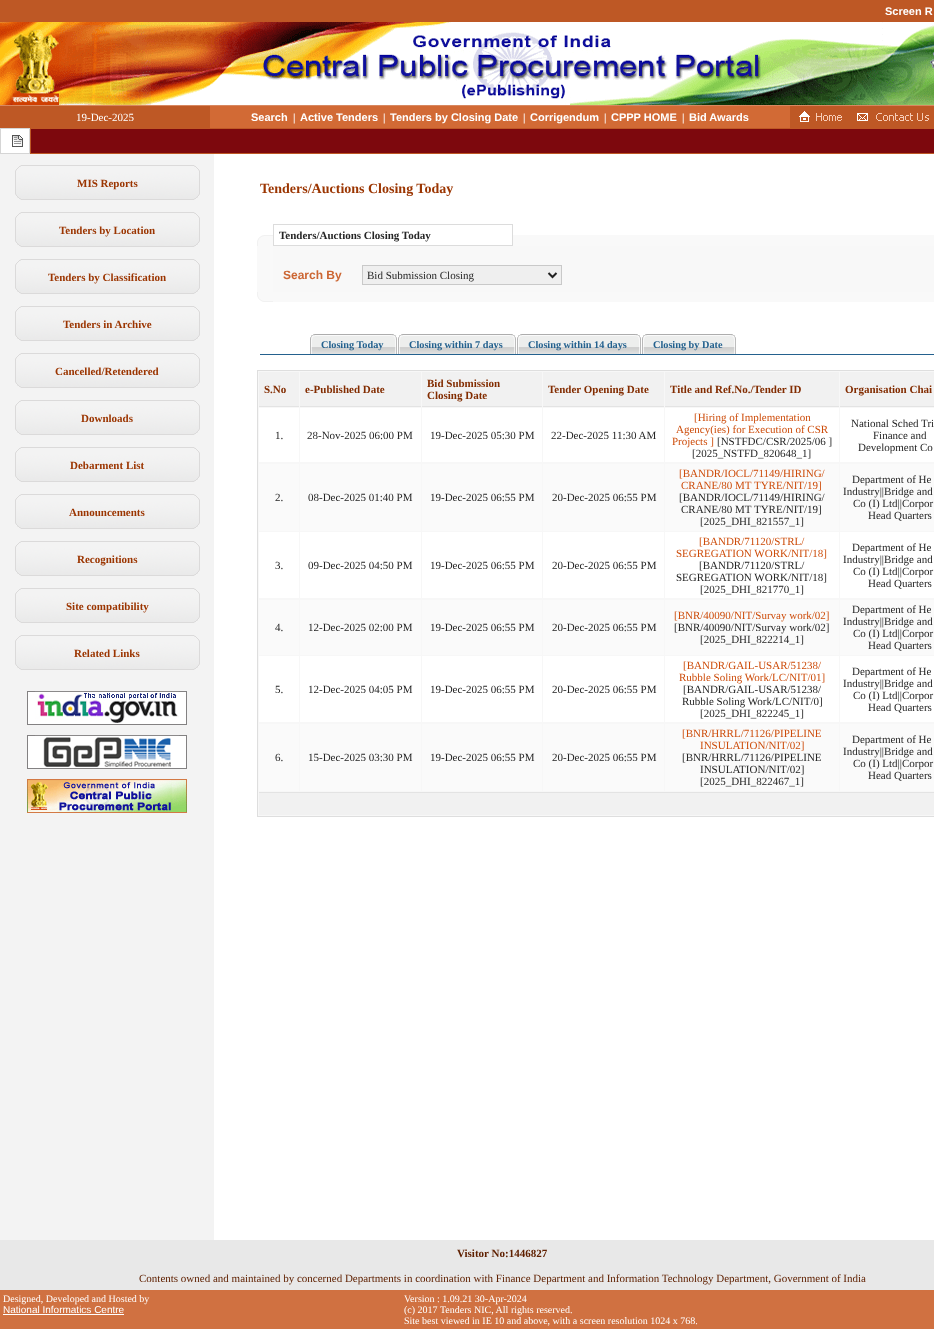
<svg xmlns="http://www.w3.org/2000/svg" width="934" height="1329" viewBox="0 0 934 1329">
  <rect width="100%" height="100%" fill="#ffffff"/>
  <rect x="0" y="0" width="934" height="22" fill="#be5825"/>
  <text x="885" y="15" font-family="Liberation Sans" font-size="11" font-weight="bold" fill="#ffffff">Screen R</text>
  <image x="0" y="22" width="934" height="83" href="img1.png"/>
  <rect x="0" y="105" width="934" height="1" fill="#d88860"/>
  <rect x="0" y="106" width="210" height="22" fill="#be5825"/>
  <text x="76" y="121" font-family="Liberation Serif" font-size="11" fill="#ffffff">19-Dec-2025</text>
  <rect x="210" y="106" width="580" height="22" fill="#d26a35"/>
  <text x="251" y="121" font-family="Liberation Sans" font-size="11" font-weight="bold" fill="#ffffff">Search</text>
  <text x="293" y="121" font-family="Liberation Serif" font-size="11" font-weight="bold" fill="#ffffff">|</text>
  <text x="300" y="121" font-family="Liberation Sans" font-size="11" font-weight="bold" fill="#ffffff">Active Tenders</text>
  <text x="383" y="121" font-family="Liberation Serif" font-size="11" font-weight="bold" fill="#ffffff">|</text>
  <text x="390" y="121" font-family="Liberation Sans" font-size="11" font-weight="bold" fill="#ffffff">Tenders by Closing Date</text>
  <text x="523" y="121" font-family="Liberation Serif" font-size="11" font-weight="bold" fill="#ffffff">|</text>
  <text x="530" y="121" font-family="Liberation Sans" font-size="11" font-weight="bold" fill="#ffffff">Corrigendum</text>
  <text x="604" y="121" font-family="Liberation Serif" font-size="11" font-weight="bold" fill="#ffffff">|</text>
  <text x="611" y="121" font-family="Liberation Sans" font-size="11" font-weight="bold" fill="#ffffff">CPPP HOME</text>
  <text x="682" y="121" font-family="Liberation Serif" font-size="11" font-weight="bold" fill="#ffffff">|</text>
  <text x="689" y="121" font-family="Liberation Sans" font-size="11" font-weight="bold" fill="#ffffff">Bid Awards</text>
  <rect x="790" y="106" width="144" height="22" fill="#be5825"/>
  <image x="799" y="111" width="43" height="11" href="img2.png"/>
  <image x="857" y="113" width="72" height="8" href="img3.png"/>
  <rect x="0.5" y="128.5" width="29" height="25" fill="none" stroke="#d5d5d5"/>
  <image x="12" y="135" width="11" height="12" href="img4.png"/>
  <rect x="30.5" y="128.5" width="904" height="25" fill="#7d080d" stroke="#be5825"/>
  <rect x="0" y="154" width="214" height="1086" fill="#f3f3f3"/>
  <image x="15" y="165" width="185" height="35" href="img5.png"/>
  <text x="77" y="187" font-family="Liberation Serif" font-size="11" font-weight="bold" fill="#9b3501">MIS Reports</text>
  <image x="15" y="212" width="185" height="35" href="img5.png"/>
  <text x="59" y="234" font-family="Liberation Serif" font-size="11" font-weight="bold" fill="#9b3501">Tenders by Location</text>
  <image x="15" y="259" width="185" height="35" href="img5.png"/>
  <text x="48" y="281" font-family="Liberation Serif" font-size="11" font-weight="bold" fill="#9b3501">Tenders by Classification</text>
  <image x="15" y="306" width="185" height="35" href="img5.png"/>
  <text x="63" y="328" font-family="Liberation Serif" font-size="11" font-weight="bold" fill="#9b3501">Tenders in Archive</text>
  <image x="15" y="353" width="185" height="35" href="img5.png"/>
  <text x="55" y="375" font-family="Liberation Serif" font-size="11" font-weight="bold" fill="#9b3501">Cancelled/Retendered</text>
  <image x="15" y="400" width="185" height="35" href="img5.png"/>
  <text x="81" y="422" font-family="Liberation Serif" font-size="11" font-weight="bold" fill="#9b3501">Downloads</text>
  <image x="15" y="447" width="185" height="35" href="img5.png"/>
  <text x="70" y="469" font-family="Liberation Serif" font-size="11" font-weight="bold" fill="#9b3501">Debarment List</text>
  <image x="15" y="494" width="185" height="35" href="img5.png"/>
  <text x="69" y="516" font-family="Liberation Serif" font-size="11" font-weight="bold" fill="#9b3501">Announcements</text>
  <image x="15" y="541" width="185" height="35" href="img5.png"/>
  <text x="77" y="563" font-family="Liberation Serif" font-size="11" font-weight="bold" fill="#9b3501">Recognitions</text>
  <image x="15" y="588" width="185" height="35" href="img5.png"/>
  <text x="66" y="610" font-family="Liberation Serif" font-size="11" font-weight="bold" fill="#9b3501">Site compatibility</text>
  <image x="15" y="635" width="185" height="35" href="img5.png"/>
  <text x="74" y="657" font-family="Liberation Serif" font-size="11" font-weight="bold" fill="#9b3501">Related Links</text>
  <image x="27" y="691" width="160" height="34" href="img6.png"/>
  <image x="27" y="735" width="160" height="34" href="img7.png"/>
  <image x="27" y="779" width="160" height="34" href="img8.png"/>
  <text x="260" y="193" font-family="Liberation Serif" font-size="14" font-weight="bold" fill="#9b3501">Tenders/Auctions Closing Today</text>
  <image x="257" y="235" width="16" height="11" href="img9.png"/>
  <rect x="513" y="235" width="421" height="11" fill="#f9f9f9"/>
  <rect x="273" y="224" width="240" height="22" fill="#dcdcdc"/>
  <rect x="274" y="225" width="238" height="20" fill="#ffffff"/>
  <text x="279" y="239" font-family="Liberation Serif" font-size="11" font-weight="bold" fill="#252525">Tenders/Auctions Closing Today</text>
  <rect x="257" y="246" width="16" height="46" fill="#f9f9f9"/>
  <rect x="273" y="246" width="661" height="46" fill="#f8f8f8"/>
  <text x="283" y="279" font-family="Liberation Sans" font-size="12" font-weight="bold" fill="#cc6633">Search By</text>
  <rect x="362.5" y="265.5" width="199" height="19" fill="#efefef" stroke="#c9c9c9"/>
  <path d="M548.5 273L552.5 277L556.5 273" fill="none" stroke="#212121" stroke-width="2"/>
  <text x="367" y="279" font-family="Liberation Serif" font-size="11" fill="#252525">Bid Submission Closing</text>
  <image x="257" y="292" width="16" height="10" href="img10.png"/>
  <rect x="273" y="292" width="661" height="10" fill="#f9f9f9"/>
  <rect x="260" y="354" width="674" height="1" fill="#24618e"/>
  <image x="310" y="334" width="5" height="20" href="img11.png"/>
  <image x="315" y="334" width="82" height="20" href="img12.png"/>
  <text x="321" y="348" font-family="Liberation Serif" font-size="10.25" font-weight="bold" fill="#24618e">Closing Today</text>
  <image x="398" y="334" width="5" height="20" href="img11.png"/>
  <image x="403" y="334" width="113" height="20" href="img13.png"/>
  <text x="409" y="348" font-family="Liberation Serif" font-size="10.25" font-weight="bold" fill="#24618e">Closing within 7 days</text>
  <image x="517" y="334" width="5" height="20" href="img11.png"/>
  <image x="522" y="334" width="119" height="20" href="img14.png"/>
  <text x="528" y="348" font-family="Liberation Serif" font-size="10.25" font-weight="bold" fill="#24618e">Closing within 14 days</text>
  <image x="642" y="334" width="5" height="20" href="img11.png"/>
  <image x="647" y="334" width="89" height="20" href="img15.png"/>
  <text x="653" y="348" font-family="Liberation Serif" font-size="10.25" font-weight="bold" fill="#24618e">Closing by Date</text>
  <rect x="257.5" y="370.5" width="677" height="446" fill="#f7f7f7" stroke="#dedede"/>
  <rect x="259" y="372" width="40" height="34" fill="#f1f1f1"/>
  <rect x="259" y="406" width="40" height="1" fill="#e3e3e3"/>
  <text x="264" y="393" font-family="Liberation Serif" font-size="11" font-weight="bold" fill="#822c00">S.No</text>
  <rect x="300" y="372" width="121" height="34" fill="#f1f1f1"/>
  <rect x="300" y="406" width="121" height="1" fill="#e3e3e3"/>
  <text x="305" y="393" font-family="Liberation Serif" font-size="11" font-weight="bold" fill="#822c00">e-Published Date</text>
  <rect x="422" y="372" width="120" height="34" fill="#f1f1f1"/>
  <rect x="422" y="406" width="120" height="1" fill="#e3e3e3"/>
  <text x="427" y="387" font-family="Liberation Serif" font-size="11" font-weight="bold" fill="#822c00">Bid Submission</text>
  <text x="427" y="399" font-family="Liberation Serif" font-size="11" font-weight="bold" fill="#822c00">Closing Date</text>
  <rect x="543" y="372" width="121" height="34" fill="#f1f1f1"/>
  <rect x="543" y="406" width="121" height="1" fill="#e3e3e3"/>
  <text x="548" y="393" font-family="Liberation Serif" font-size="11" font-weight="bold" fill="#822c00">Tender Opening Date</text>
  <rect x="665" y="372" width="174" height="34" fill="#f1f1f1"/>
  <rect x="665" y="406" width="174" height="1" fill="#e3e3e3"/>
  <text x="670" y="393" font-family="Liberation Serif" font-size="11" font-weight="bold" fill="#822c00">Title and Ref.No./Tender ID</text>
  <rect x="840" y="372" width="94" height="34" fill="#f1f1f1"/>
  <rect x="840" y="406" width="94" height="1" fill="#e3e3e3"/>
  <text x="845" y="393" font-family="Liberation Serif" font-size="11" font-weight="bold" fill="#822c00">Organisation Chai</text>
  <rect x="259" y="408" width="40" height="54" fill="#ffffff"/>
  <text x="275" y="439" font-family="Liberation Serif" font-size="11" fill="#252525">1.</text>
  <rect x="300" y="408" width="121" height="54" fill="#ffffff"/>
  <text x="307" y="439" font-family="Liberation Serif" font-size="11" fill="#252525">28-Nov-2025 06:00 PM</text>
  <rect x="422" y="408" width="120" height="54" fill="#ffffff"/>
  <text x="430" y="439" font-family="Liberation Serif" font-size="11" fill="#252525">19-Dec-2025 05:30 PM</text>
  <rect x="543" y="408" width="121" height="54" fill="#ffffff"/>
  <text x="551" y="439" font-family="Liberation Serif" font-size="11" fill="#252525">22-Dec-2025 11:30 AM</text>
  <rect x="665" y="408" width="174" height="54" fill="#ffffff"/>
  <text x="694" y="421" font-family="Liberation Serif" font-size="11" fill="#cd4c0a">[Hiring of Implementation</text>
  <text x="676" y="433" font-family="Liberation Serif" font-size="11" fill="#cd4c0a">Agency(ies) for Execution of CSR</text>
  <text x="672" y="445" font-family="Liberation Serif" font-size="11" fill="#cd4c0a">Projects ]</text>
  <text x="717" y="445" font-family="Liberation Serif" font-size="11" fill="#252525">[NSTFDC/CSR/2025/06 ]</text>
  <text x="692" y="457" font-family="Liberation Serif" font-size="11" fill="#252525">[2025_NSTFD_820648_1]</text>
  <rect x="840" y="408" width="94" height="54" fill="#ffffff"/>
  <text x="851" y="427" font-family="Liberation Serif" font-size="11" fill="#252525">National Sched Tri</text>
  <text x="873" y="439" font-family="Liberation Serif" font-size="11" fill="#252525">Finance and</text>
  <text x="858" y="451" font-family="Liberation Serif" font-size="11" fill="#252525">Development Co</text>
  <rect x="259" y="464" width="40" height="67" fill="#fafafa"/>
  <text x="275" y="501" font-family="Liberation Serif" font-size="11" fill="#252525">2.</text>
  <rect x="300" y="464" width="121" height="67" fill="#fafafa"/>
  <text x="308" y="501" font-family="Liberation Serif" font-size="11" fill="#252525">08-Dec-2025 01:40 PM</text>
  <rect x="422" y="464" width="120" height="67" fill="#fafafa"/>
  <text x="430" y="501" font-family="Liberation Serif" font-size="11" fill="#252525">19-Dec-2025 06:55 PM</text>
  <rect x="543" y="464" width="121" height="67" fill="#fafafa"/>
  <text x="552" y="501" font-family="Liberation Serif" font-size="11" fill="#252525">20-Dec-2025 06:55 PM</text>
  <rect x="665" y="464" width="174" height="67" fill="#fafafa"/>
  <text x="679" y="477" font-family="Liberation Serif" font-size="11" fill="#cd4c0a">[BANDR/IOCL/71149/HIRING/</text>
  <text x="681" y="489" font-family="Liberation Serif" font-size="11" fill="#cd4c0a">CRANE/80 MT TYRE/NIT/19]</text>
  <text x="679" y="501" font-family="Liberation Serif" font-size="11" fill="#252525">[BANDR/IOCL/71149/HIRING/</text>
  <text x="681" y="513" font-family="Liberation Serif" font-size="11" fill="#252525">CRANE/80 MT TYRE/NIT/19]</text>
  <text x="700" y="525" font-family="Liberation Serif" font-size="11" fill="#252525">[2025_DHI_821557_1]</text>
  <rect x="840" y="464" width="94" height="67" fill="#fafafa"/>
  <text x="852" y="483" font-family="Liberation Serif" font-size="11" fill="#252525">Department of He</text>
  <text x="843" y="495" font-family="Liberation Serif" font-size="11" fill="#252525">Industry||Bridge and</text>
  <text x="853" y="507" font-family="Liberation Serif" font-size="11" fill="#252525">Co (I) Ltd||Corpor</text>
  <text x="868" y="519" font-family="Liberation Serif" font-size="11" fill="#252525">Head Quarters</text>
  <rect x="259" y="532" width="40" height="66" fill="#ffffff"/>
  <text x="275" y="569" font-family="Liberation Serif" font-size="11" fill="#252525">3.</text>
  <rect x="300" y="532" width="121" height="66" fill="#ffffff"/>
  <text x="308" y="569" font-family="Liberation Serif" font-size="11" fill="#252525">09-Dec-2025 04:50 PM</text>
  <rect x="422" y="532" width="120" height="66" fill="#ffffff"/>
  <text x="430" y="569" font-family="Liberation Serif" font-size="11" fill="#252525">19-Dec-2025 06:55 PM</text>
  <rect x="543" y="532" width="121" height="66" fill="#ffffff"/>
  <text x="552" y="569" font-family="Liberation Serif" font-size="11" fill="#252525">20-Dec-2025 06:55 PM</text>
  <rect x="665" y="532" width="174" height="66" fill="#ffffff"/>
  <text x="699" y="545" font-family="Liberation Serif" font-size="11" fill="#cd4c0a">[BANDR/71120/STRL/</text>
  <text x="676" y="557" font-family="Liberation Serif" font-size="11" fill="#cd4c0a">SEGREGATION WORK/NIT/18]</text>
  <text x="699" y="569" font-family="Liberation Serif" font-size="11" fill="#252525">[BANDR/71120/STRL/</text>
  <text x="676" y="581" font-family="Liberation Serif" font-size="11" fill="#252525">SEGREGATION WORK/NIT/18]</text>
  <text x="700" y="593" font-family="Liberation Serif" font-size="11" fill="#252525">[2025_DHI_821770_1]</text>
  <rect x="840" y="532" width="94" height="66" fill="#ffffff"/>
  <text x="852" y="551" font-family="Liberation Serif" font-size="11" fill="#252525">Department of He</text>
  <text x="843" y="563" font-family="Liberation Serif" font-size="11" fill="#252525">Industry||Bridge and</text>
  <text x="853" y="575" font-family="Liberation Serif" font-size="11" fill="#252525">Co (I) Ltd||Corpor</text>
  <text x="868" y="587" font-family="Liberation Serif" font-size="11" fill="#252525">Head Quarters</text>
  <rect x="259" y="600" width="40" height="55" fill="#fafafa"/>
  <text x="275" y="631" font-family="Liberation Serif" font-size="11" fill="#252525">4.</text>
  <rect x="300" y="600" width="121" height="55" fill="#fafafa"/>
  <text x="308" y="631" font-family="Liberation Serif" font-size="11" fill="#252525">12-Dec-2025 02:00 PM</text>
  <rect x="422" y="600" width="120" height="55" fill="#fafafa"/>
  <text x="430" y="631" font-family="Liberation Serif" font-size="11" fill="#252525">19-Dec-2025 06:55 PM</text>
  <rect x="543" y="600" width="121" height="55" fill="#fafafa"/>
  <text x="552" y="631" font-family="Liberation Serif" font-size="11" fill="#252525">20-Dec-2025 06:55 PM</text>
  <rect x="665" y="600" width="174" height="55" fill="#fafafa"/>
  <text x="674" y="619" font-family="Liberation Serif" font-size="11" fill="#cd4c0a">[BNR/40090/NIT/Survay work/02]</text>
  <text x="674" y="631" font-family="Liberation Serif" font-size="11" fill="#252525">[BNR/40090/NIT/Survay work/02]</text>
  <text x="700" y="643" font-family="Liberation Serif" font-size="11" fill="#252525">[2025_DHI_822214_1]</text>
  <rect x="840" y="600" width="94" height="55" fill="#fafafa"/>
  <text x="852" y="613" font-family="Liberation Serif" font-size="11" fill="#252525">Department of He</text>
  <text x="843" y="625" font-family="Liberation Serif" font-size="11" fill="#252525">Industry||Bridge and</text>
  <text x="853" y="637" font-family="Liberation Serif" font-size="11" fill="#252525">Co (I) Ltd||Corpor</text>
  <text x="868" y="649" font-family="Liberation Serif" font-size="11" fill="#252525">Head Quarters</text>
  <rect x="259" y="656" width="40" height="66" fill="#ffffff"/>
  <text x="275" y="693" font-family="Liberation Serif" font-size="11" fill="#252525">5.</text>
  <rect x="300" y="656" width="121" height="66" fill="#ffffff"/>
  <text x="308" y="693" font-family="Liberation Serif" font-size="11" fill="#252525">12-Dec-2025 04:05 PM</text>
  <rect x="422" y="656" width="120" height="66" fill="#ffffff"/>
  <text x="430" y="693" font-family="Liberation Serif" font-size="11" fill="#252525">19-Dec-2025 06:55 PM</text>
  <rect x="543" y="656" width="121" height="66" fill="#ffffff"/>
  <text x="552" y="693" font-family="Liberation Serif" font-size="11" fill="#252525">20-Dec-2025 06:55 PM</text>
  <rect x="665" y="656" width="174" height="66" fill="#ffffff"/>
  <text x="683" y="669" font-family="Liberation Serif" font-size="11" fill="#cd4c0a">[BANDR/GAIL-USAR/51238/</text>
  <text x="679" y="681" font-family="Liberation Serif" font-size="11" fill="#cd4c0a">Rubble Soling Work/LC/NIT/01]</text>
  <text x="683" y="693" font-family="Liberation Serif" font-size="11" fill="#252525">[BANDR/GAIL-USAR/51238/</text>
  <text x="682" y="705" font-family="Liberation Serif" font-size="11" fill="#252525">Rubble Soling Work/LC/NIT/0]</text>
  <text x="700" y="717" font-family="Liberation Serif" font-size="11" fill="#252525">[2025_DHI_822245_1]</text>
  <rect x="840" y="656" width="94" height="66" fill="#ffffff"/>
  <text x="852" y="675" font-family="Liberation Serif" font-size="11" fill="#252525">Department of He</text>
  <text x="843" y="687" font-family="Liberation Serif" font-size="11" fill="#252525">Industry||Bridge and</text>
  <text x="853" y="699" font-family="Liberation Serif" font-size="11" fill="#252525">Co (I) Ltd||Corpor</text>
  <text x="868" y="711" font-family="Liberation Serif" font-size="11" fill="#252525">Head Quarters</text>
  <rect x="259" y="724" width="40" height="67" fill="#fafafa"/>
  <text x="275" y="761" font-family="Liberation Serif" font-size="11" fill="#252525">6.</text>
  <rect x="300" y="724" width="121" height="67" fill="#fafafa"/>
  <text x="308" y="761" font-family="Liberation Serif" font-size="11" fill="#252525">15-Dec-2025 03:30 PM</text>
  <rect x="422" y="724" width="120" height="67" fill="#fafafa"/>
  <text x="430" y="761" font-family="Liberation Serif" font-size="11" fill="#252525">19-Dec-2025 06:55 PM</text>
  <rect x="543" y="724" width="121" height="67" fill="#fafafa"/>
  <text x="552" y="761" font-family="Liberation Serif" font-size="11" fill="#252525">20-Dec-2025 06:55 PM</text>
  <rect x="665" y="724" width="174" height="67" fill="#fafafa"/>
  <text x="682" y="737" font-family="Liberation Serif" font-size="11" fill="#cd4c0a">[BNR/HRRL/71126/PIPELINE</text>
  <text x="700" y="749" font-family="Liberation Serif" font-size="11" fill="#cd4c0a">INSULATION/NIT/02]</text>
  <text x="682" y="761" font-family="Liberation Serif" font-size="11" fill="#252525">[BNR/HRRL/71126/PIPELINE</text>
  <text x="700" y="773" font-family="Liberation Serif" font-size="11" fill="#252525">INSULATION/NIT/02]</text>
  <text x="700" y="785" font-family="Liberation Serif" font-size="11" fill="#252525">[2025_DHI_822467_1]</text>
  <rect x="840" y="724" width="94" height="67" fill="#fafafa"/>
  <text x="852" y="743" font-family="Liberation Serif" font-size="11" fill="#252525">Department of He</text>
  <text x="843" y="755" font-family="Liberation Serif" font-size="11" fill="#252525">Industry||Bridge and</text>
  <text x="853" y="767" font-family="Liberation Serif" font-size="11" fill="#252525">Co (I) Ltd||Corpor</text>
  <text x="868" y="779" font-family="Liberation Serif" font-size="11" fill="#252525">Head Quarters</text>
  <rect x="259" y="793" width="675" height="22" fill="#f1f1f1"/>
  <rect x="259" y="792" width="675" height="1" fill="#e3e3e3"/>
  <rect x="0" y="1240" width="934" height="50" fill="#e8e8e8"/>
  <text x="457" y="1257" font-family="Liberation Serif" font-size="11" font-weight="bold" fill="#5f2000">Visitor No:1446827</text>
  <text x="139" y="1282" font-family="Liberation Serif" font-size="11" fill="#5f2000">Contents owned and maintained by concerned Departments in coordination with Finance Department and Information Technology Department, Government of India</text>
  <rect x="0" y="1290" width="934" height="39" fill="#d07141"/>
  <text x="3" y="1302" font-family="Liberation Serif" font-size="10" fill="#ffffff">Designed, Developed and Hosted by</text>
  <text x="3" y="1313" font-family="Liberation Sans" font-size="10" fill="#ffffff">National Informatics Centre</text>
  <rect x="3" y="1314" width="121" height="1" fill="#ffffff"/>
  <text x="404" y="1302" font-family="Liberation Serif" font-size="10" fill="#ffffff">Version : 1.09.21 30-Apr-2024</text>
  <text x="404" y="1313" font-family="Liberation Serif" font-size="10" fill="#ffffff">(c) 2017 Tenders NIC, All rights reserved.</text>
  <text x="404" y="1324" font-family="Liberation Serif" font-size="10" fill="#ffffff">Site best viewed in IE 10 and above, with a screen resolution 1024 x 768.</text>
</svg>
